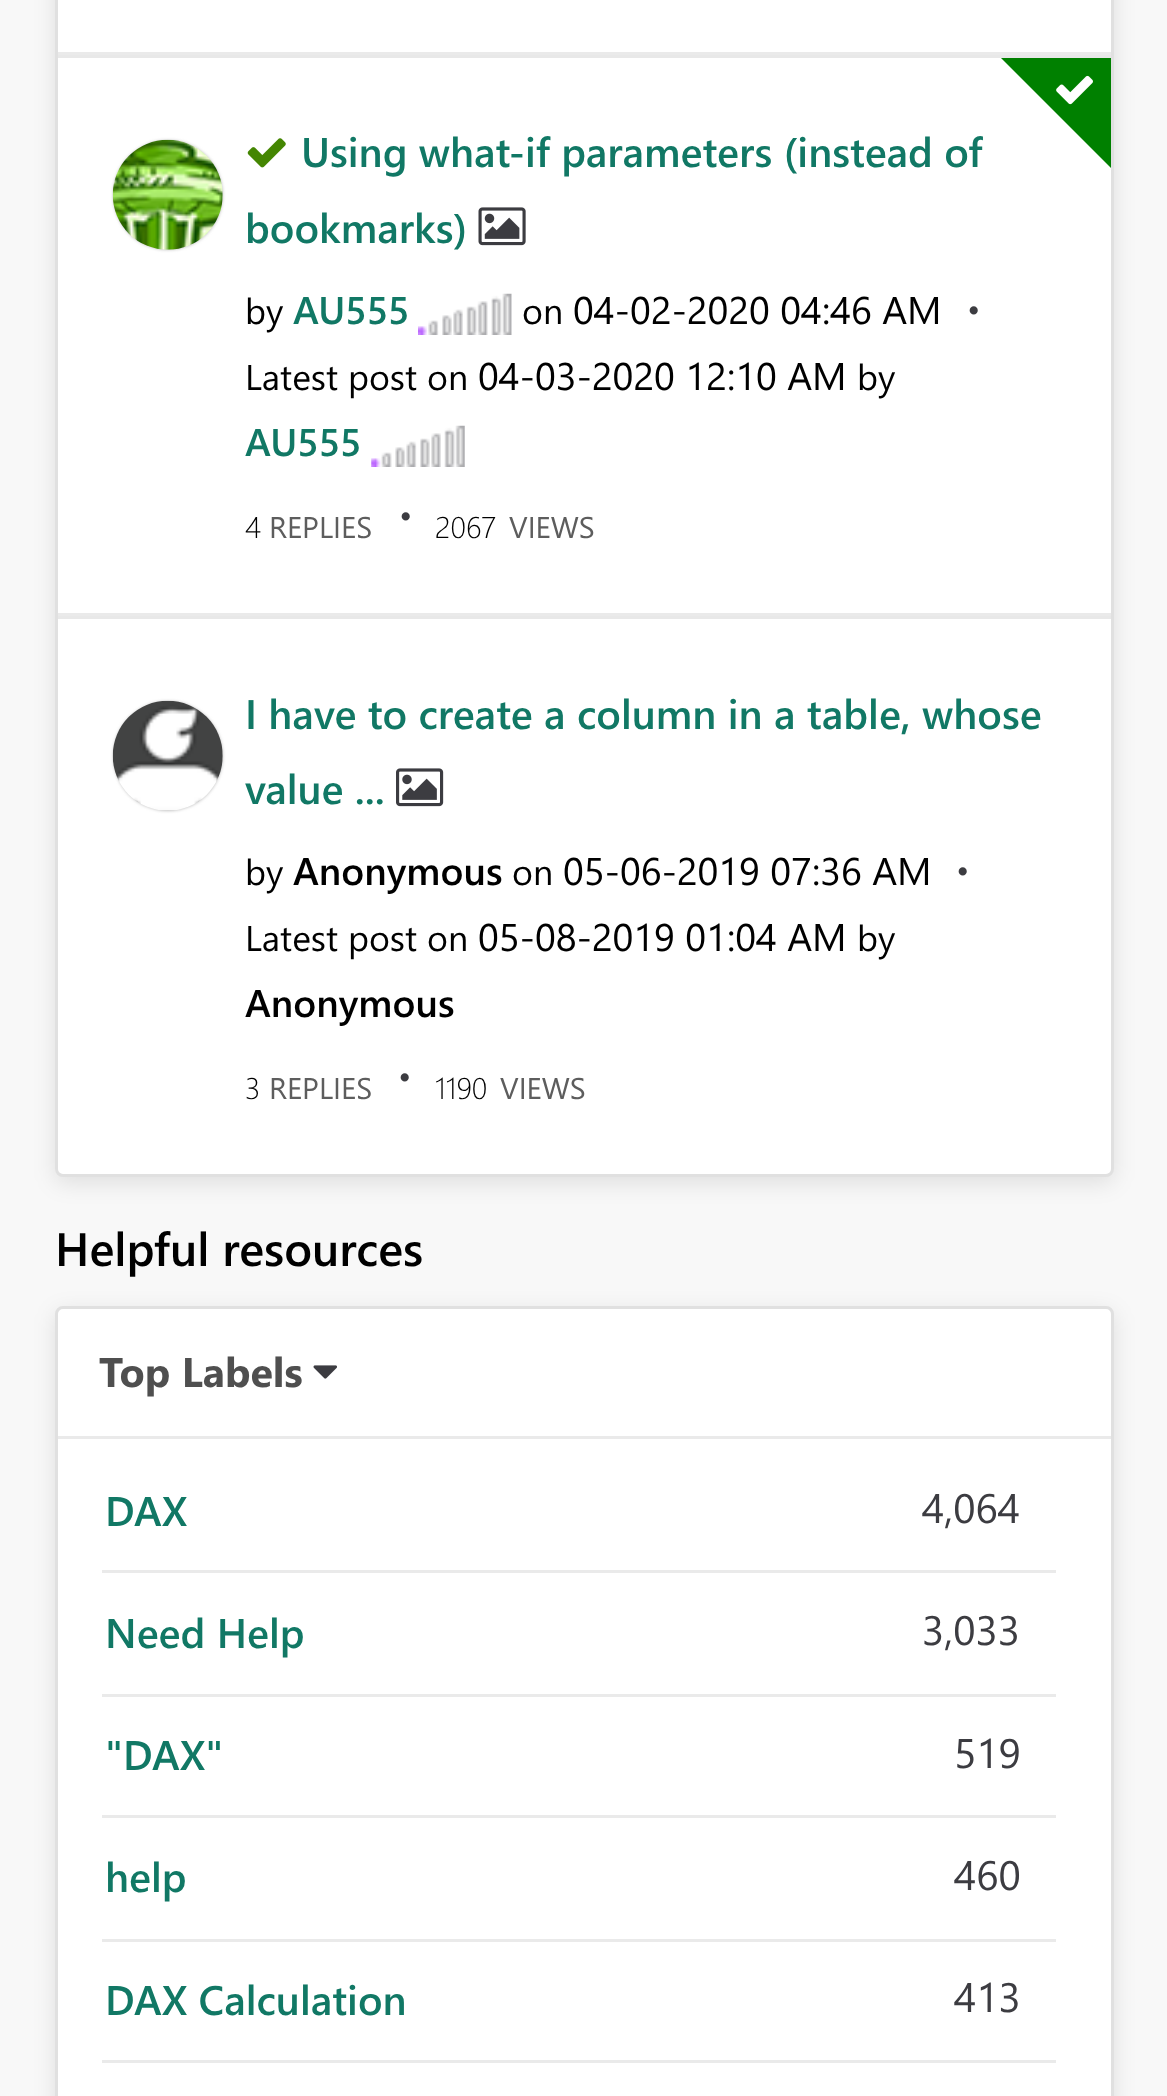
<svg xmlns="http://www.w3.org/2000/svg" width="1167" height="2096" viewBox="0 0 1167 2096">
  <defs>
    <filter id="blur1" x="-50%" y="-200%" width="200%" height="500%"><feGaussianBlur stdDeviation="11"/></filter>
    <filter id="blur2" x="-50%" y="-200%" width="200%" height="500%"><feGaussianBlur stdDeviation="1.5"/></filter>
  </defs>
  <rect width="100%" height="100%" fill="#f8f8f8"/>
  <rect x="55" y="-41" width="1059" height="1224" rx="8" fill="#000000" fill-opacity="0.1" filter="url(#blur1)"/>
  <rect x="56.5" y="-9.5" width="1056" height="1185" rx="6.5" fill="#ffffff" stroke="#e0e0e0" stroke-width="3"/>
  <rect x="58" y="52" width="1053" height="3" fill="#eaeaea"/>
  <rect x="58" y="55" width="1053" height="3" fill="#e8e8e8"/>
  <rect x="58" y="613" width="1053" height="3" fill="#eaeaea"/>
  <path d="M1001 58H1111V168Z" fill="#008000"/>
  <image x="1056" y="75" width="37" height="30" href="img1.png"/>
  <rect x="113" y="140" width="110" height="110" rx="55" fill="#c4c4c4" filter="url(#blur2)"/>
  <image x="112" y="139" width="111" height="111" href="img2.png"/>
  <image x="247" y="138" width="39" height="30" href="img3.png"/>
  <text x="301" y="167" font-family="Segoe UI" font-size="41.25" font-weight="600" fill="#117865">Using what-if parameters (instead of</text>
  <text x="245" y="243" font-family="Segoe UI" font-size="41.25" font-weight="600" fill="#117865">bookmarks)</text>
  <image x="478" y="207" width="48" height="39" href="img4.png"/>
  <text x="245" y="324" font-family="Segoe UI" font-size="35.75" fill="#000000">by</text>
  <text x="293" y="324" font-family="Segoe UI" font-size="38.5" font-weight="600" fill="#117865">AU555</text>
  <image x="418" y="293" width="94" height="42" href="img5.png"/>
  <text x="522" y="324" font-family="Segoe UI" font-size="35.75" fill="#000000">on</text>
  <text x="573" y="324" font-family="Segoe UI" font-size="38.5" fill="#000000">04-02-2020 04:46 AM</text>
  <text x="967" y="321" font-family="Segoe UI" font-size="33" fill="#3c3c41">•</text>
  <text x="245" y="390" font-family="Segoe UI" font-size="35.75" fill="#000000">Latest post on</text>
  <text x="478" y="390" font-family="Segoe UI" font-size="38.5" fill="#000000">04-03-2020 12:10 AM</text>
  <text x="857" y="390" font-family="Segoe UI" font-size="35.75" fill="#000000">by</text>
  <text x="245" y="456" font-family="Segoe UI" font-size="38.5" font-weight="600" fill="#117865">AU555</text>
  <image x="371" y="425" width="94" height="42" href="img6.png"/>
  <text x="245" y="538" font-family="Segoe UI" font-size="30" font-weight="300" fill="#000000">4</text>
  <text x="269" y="538" font-family="Segoe UI" font-size="30" fill="#5d5d5d">REPLIES</text>
  <text x="399" y="527" font-family="Segoe UI" font-size="33" fill="#3c3c41">•</text>
  <text x="435" y="538" font-family="Segoe UI" font-size="30" font-weight="300" fill="#000000">2067</text>
  <text x="509" y="538" font-family="Segoe UI" font-size="30" fill="#5d5d5d">VIEWS</text>
  <rect x="58" y="616" width="1053" height="3" fill="#e8e8e8"/>
  <rect x="113" y="701" width="110" height="110" rx="55" fill="#c4c4c4" filter="url(#blur2)"/>
  <image x="112" y="700" width="111" height="110" href="img7.png"/>
  <text x="245" y="729" font-family="Segoe UI" font-size="41.25" font-weight="600" fill="#117865">I have to create a column in a table, whose</text>
  <text x="245" y="804" font-family="Segoe UI" font-size="41.25" font-weight="600" fill="#117865">value ...</text>
  <image x="396" y="768" width="48" height="39" href="img8.png"/>
  <text x="245" y="885" font-family="Segoe UI" font-size="35.75" fill="#000000">by</text>
  <text x="293" y="885" font-family="Segoe UI" font-size="38.5" font-weight="600" fill="#000000">Anonymous</text>
  <text x="512" y="885" font-family="Segoe UI" font-size="35.75" fill="#000000">on</text>
  <text x="563" y="885" font-family="Segoe UI" font-size="38.5" fill="#000000">05-06-2019 07:36 AM</text>
  <text x="956" y="882" font-family="Segoe UI" font-size="33" fill="#3c3c41">•</text>
  <text x="245" y="951" font-family="Segoe UI" font-size="35.75" fill="#000000">Latest post on</text>
  <text x="478" y="951" font-family="Segoe UI" font-size="38.5" fill="#000000">05-08-2019 01:04 AM</text>
  <text x="857" y="951" font-family="Segoe UI" font-size="35.75" fill="#000000">by</text>
  <text x="245" y="1017" font-family="Segoe UI" font-size="38.5" font-weight="600" fill="#000000">Anonymous</text>
  <text x="245" y="1099" font-family="Segoe UI" font-size="30" font-weight="300" fill="#000000">3</text>
  <text x="269" y="1099" font-family="Segoe UI" font-size="30" fill="#5d5d5d">REPLIES</text>
  <text x="398" y="1088" font-family="Segoe UI" font-size="33" fill="#3c3c41">•</text>
  <text x="435" y="1099" font-family="Segoe UI" font-size="30" font-weight="300" fill="#000000">1190</text>
  <text x="500" y="1099" font-family="Segoe UI" font-size="30" fill="#5d5d5d">VIEWS</text>
  <text x="55" y="1266" font-family="Segoe UI" font-size="46.75" font-weight="600" fill="#000000">Helpful resources</text>
  <rect x="55" y="1312" width="1059" height="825" rx="8" fill="#000000" fill-opacity="0.1" filter="url(#blur1)"/>
  <rect x="56.5" y="1307.5" width="1056" height="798" rx="6.5" fill="#ffffff" stroke="#e0e0e0" stroke-width="3"/>
  <rect x="58" y="1436" width="1053" height="3" fill="#eaeaea"/>
  <text x="99" y="1387" font-family="Segoe UI" font-size="41.25" font-weight="bold" fill="#4f4f4f">Top Labels</text>
  <image x="313" y="1365" width="24" height="14" href="img9.png"/>
  <rect x="102" y="1570" width="954" height="3" fill="#eaeaea"/>
  <text x="105" y="1526" font-family="Segoe UI" font-size="41.25" font-weight="600" fill="#117865">DAX</text>
  <text x="922" y="1523" font-family="Segoe UI" font-size="41.25" fill="#3c3c41">4,064</text>
  <rect x="102" y="1694" width="954" height="3" fill="#eaeaea"/>
  <text x="105" y="1648" font-family="Segoe UI" font-size="41.25" font-weight="600" fill="#117865">Need Help</text>
  <text x="922" y="1645" font-family="Segoe UI" font-size="41.25" fill="#3c3c41">3,033</text>
  <rect x="102" y="1815" width="954" height="3" fill="#eaeaea"/>
  <text x="105" y="1770" font-family="Segoe UI" font-size="41.25" font-weight="600" fill="#117865">"DAX"</text>
  <text x="954" y="1768" font-family="Segoe UI" font-size="41.25" fill="#3c3c41">519</text>
  <rect x="102" y="1939" width="954" height="3" fill="#eaeaea"/>
  <text x="105" y="1892" font-family="Segoe UI" font-size="41.25" font-weight="600" fill="#117865">help</text>
  <text x="954" y="1890" font-family="Segoe UI" font-size="41.25" fill="#3c3c41">460</text>
  <rect x="102" y="2060" width="954" height="3" fill="#eaeaea"/>
  <text x="105" y="2015" font-family="Segoe UI" font-size="41.25" font-weight="600" fill="#117865">DAX Calculation</text>
  <text x="954" y="2012" font-family="Segoe UI" font-size="41.25" fill="#3c3c41">413</text>
</svg>
